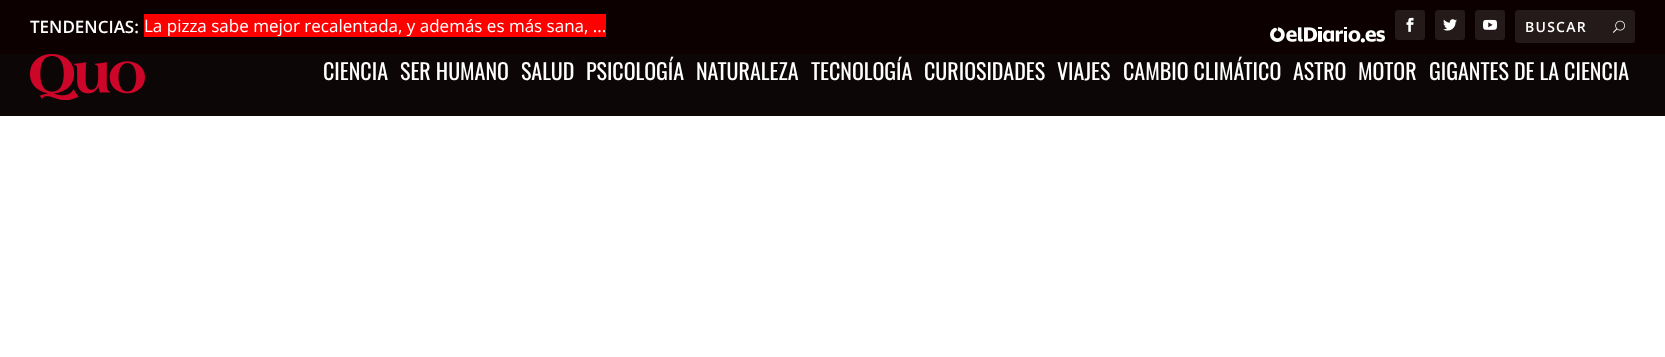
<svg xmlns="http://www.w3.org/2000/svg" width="1665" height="357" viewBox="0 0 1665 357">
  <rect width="100%" height="100%" fill="#ffffff"/>
  <rect x="0" y="0" width="1665" height="54" fill="#0c0000"/>
  <text x="30" y="33" font-family="Open Sans" font-size="17" font-weight="600" fill="#ffffff">TENDENCIAS:</text>
  <rect x="144" y="14" width="462" height="23" fill="#ff0000"/>
  <text x="144" y="32" font-family="Open Sans" font-size="17" fill="#ffffff">La pizza sabe mejor recalentada, y además es más sana, ...</text>
  <image x="1270" y="27" width="115" height="16" href="img1.png"/>
  <rect x="1395" y="10" width="30" height="30" rx="3" fill="#241a1a"/>
  <image x="1406" y="17" width="8" height="15" href="img2.png"/>
  <rect x="1435" y="10" width="30" height="30" rx="3" fill="#241a1a"/>
  <image x="1443" y="19" width="14" height="12" href="img3.png"/>
  <rect x="1475" y="10" width="30" height="30" rx="3" fill="#241a1a"/>
  <image x="1483" y="19" width="14" height="11" href="img4.png"/>
  <rect x="1515" y="10" width="120" height="33" rx="3" fill="#241a1a"/>
  <text x="1525" y="32" font-family="Open Sans" font-size="14" font-weight="600" letter-spacing="1.25" fill="#ffffff">BUSCAR</text>
  <image x="1613" y="20" width="12" height="13" href="img5.png"/>
  <rect x="0" y="54" width="1665" height="62" fill="#0c0606"/>
  <image x="30" y="54" width="115" height="46" href="img6.png"/>
  <text x="323" y="80" font-family="Oswald" font-size="22" fill="#ffffff">CIENCIA</text>
  <text x="400" y="80" font-family="Oswald" font-size="22" fill="#ffffff">SER HUMANO</text>
  <text x="521" y="80" font-family="Oswald" font-size="22" fill="#ffffff">SALUD</text>
  <text x="586" y="80" font-family="Oswald" font-size="22" fill="#ffffff">PSICOLOGÍA</text>
  <text x="696" y="80" font-family="Oswald" font-size="22" fill="#ffffff">NATURALEZA</text>
  <text x="811" y="80" font-family="Oswald" font-size="22" fill="#ffffff">TECNOLOGÍA</text>
  <text x="924" y="80" font-family="Oswald" font-size="22" fill="#ffffff">CURIOSIDADES</text>
  <text x="1057" y="80" font-family="Oswald" font-size="22" fill="#ffffff">VIAJES</text>
  <text x="1123" y="80" font-family="Oswald" font-size="22" fill="#ffffff">CAMBIO CLIMÁTICO</text>
  <text x="1293" y="80" font-family="Oswald" font-size="22" fill="#ffffff">ASTRO</text>
  <text x="1358" y="80" font-family="Oswald" font-size="22" fill="#ffffff">MOTOR</text>
  <text x="1429" y="80" font-family="Oswald" font-size="22" fill="#ffffff">GIGANTES DE LA CIENCIA</text>
</svg>
